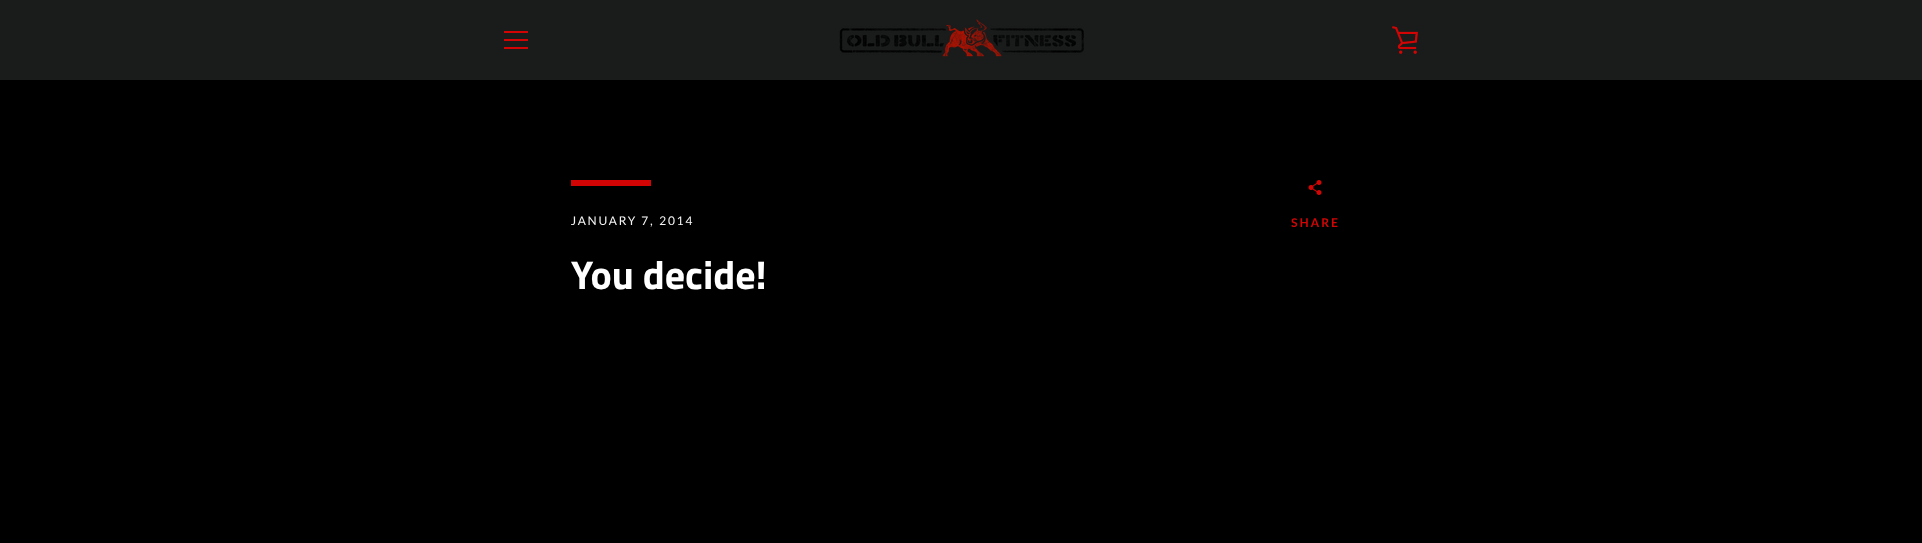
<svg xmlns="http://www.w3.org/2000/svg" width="1922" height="543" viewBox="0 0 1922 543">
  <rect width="100%" height="100%" fill="#000000"/>
  <rect x="0" y="0" width="1922" height="80" fill="#191c1b"/>
  <rect x="504" y="31" width="24" height="2" fill="#d30404"/>
  <rect x="504" y="39" width="24" height="2" fill="#d30404"/>
  <rect x="504" y="47" width="24" height="2" fill="#d30404"/>
  <image x="839" y="19" width="245" height="38" href="img1.png"/>
  <image x="1392" y="26" width="26" height="28" href="img2.png"/>
  <rect x="571" y="180" width="80" height="6" fill="#d30404"/>
  <text x="571" y="225" font-family="Lato" font-size="12" letter-spacing="1.75" fill="#f5f5f5">JANUARY 7, 2014</text>
  <text x="571" y="289" font-family="Titillium Web" font-size="40" font-weight="bold" fill="#ffffff">You decide!</text>
  <image x="1308" y="180" width="14" height="15" href="img3.png"/>
  <text x="1291" y="227" font-family="Lato" font-size="12" font-weight="bold" letter-spacing="2" fill="#d30404">SHARE</text>
</svg>
